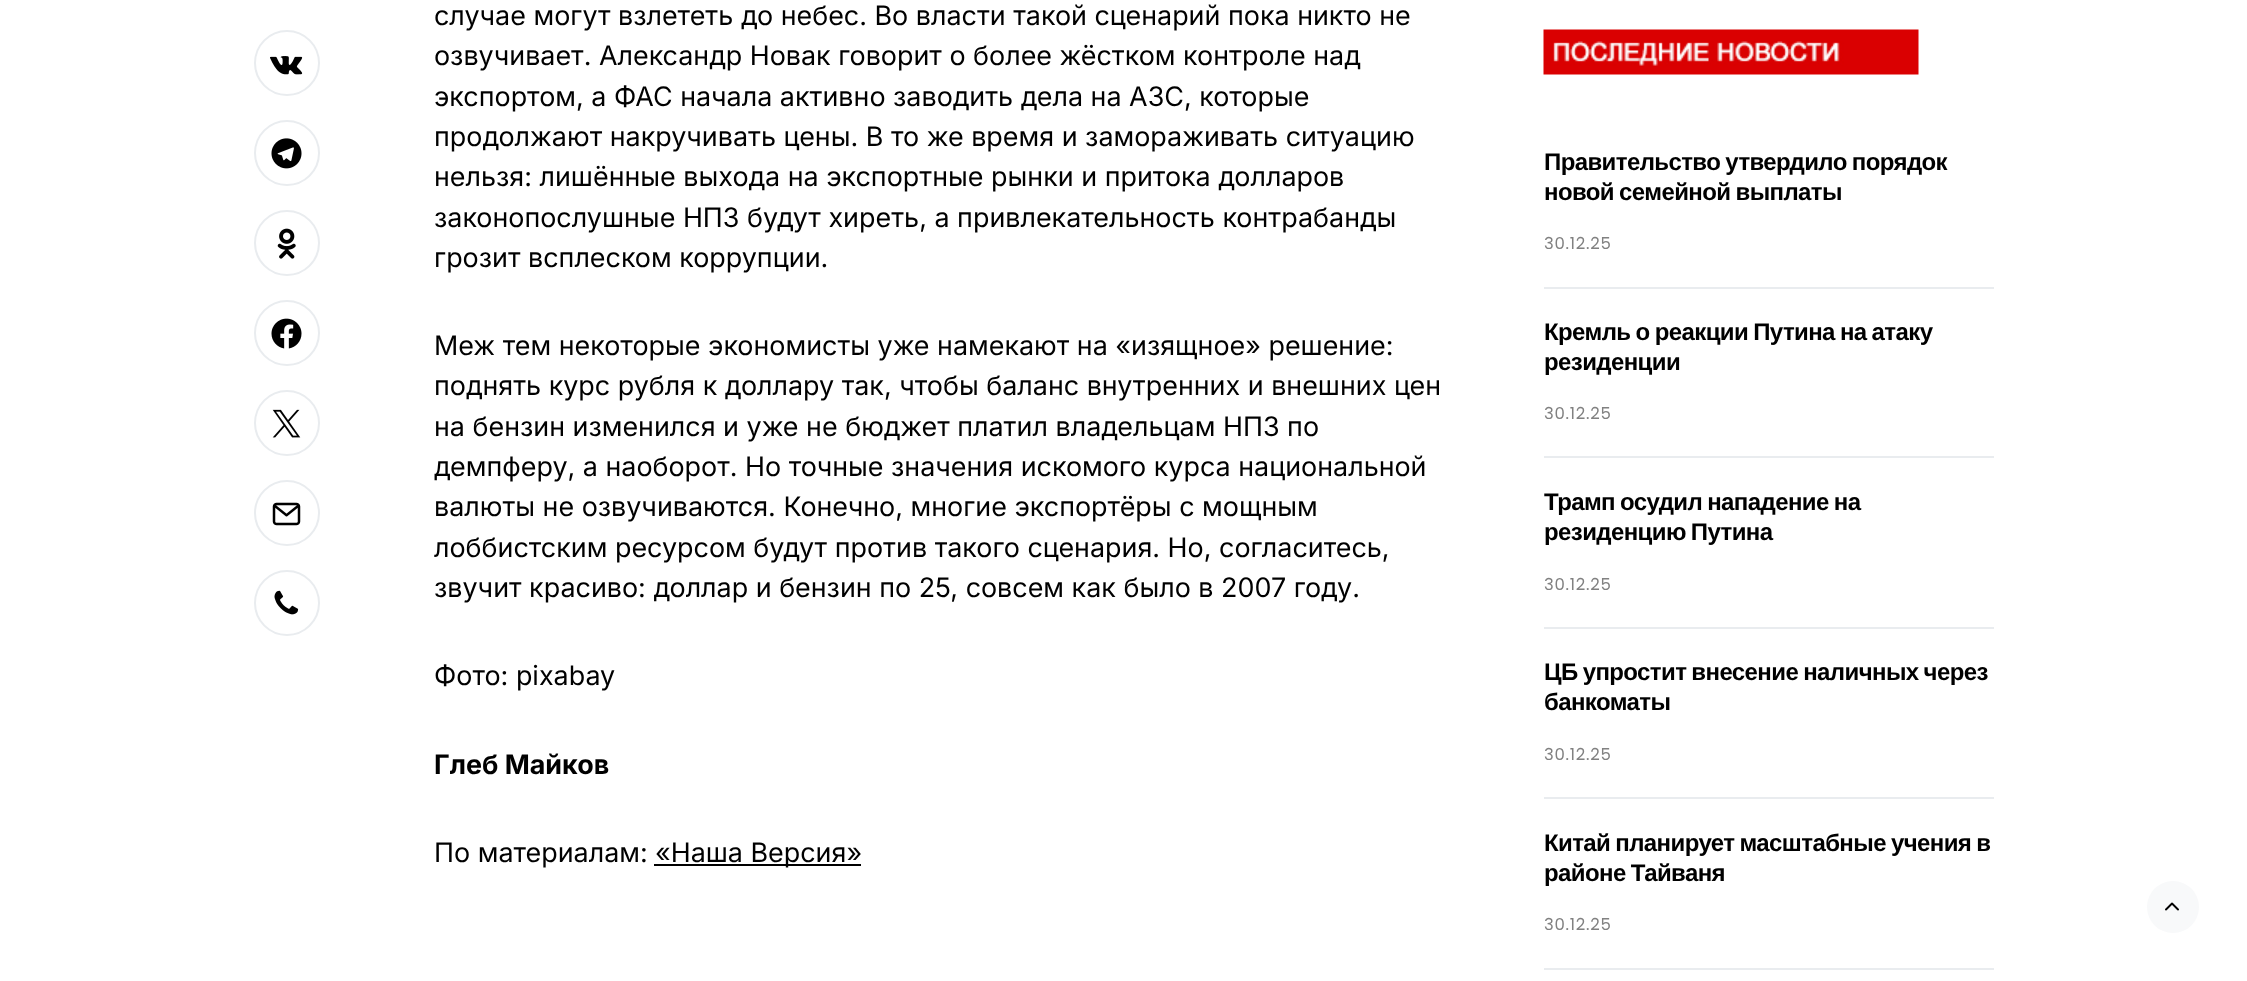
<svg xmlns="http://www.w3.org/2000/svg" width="2247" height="981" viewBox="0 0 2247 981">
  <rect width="100%" height="100%" fill="#ffffff"/>
  <circle cx="287" cy="63" r="32" fill="none" stroke="#e9ecef" stroke-width="2"/>
  <image x="270" y="56" width="33" height="19" href="img1.png"/>
  <circle cx="287" cy="153" r="32" fill="none" stroke="#e9ecef" stroke-width="2"/>
  <image x="271" y="138" width="31" height="31" href="img2.png"/>
  <circle cx="287" cy="243" r="32" fill="none" stroke="#e9ecef" stroke-width="2"/>
  <image x="277" y="228" width="19" height="31" href="img3.png"/>
  <circle cx="287" cy="333" r="32" fill="none" stroke="#e9ecef" stroke-width="2"/>
  <image x="271" y="318" width="31" height="31" href="img4.png"/>
  <circle cx="287" cy="423" r="32" fill="none" stroke="#e9ecef" stroke-width="2"/>
  <image x="272" y="409" width="29" height="29" href="img5.png"/>
  <circle cx="287" cy="513" r="32" fill="none" stroke="#e9ecef" stroke-width="2"/>
  <image x="272" y="502" width="29" height="24" href="img6.png"/>
  <circle cx="287" cy="603" r="32" fill="none" stroke="#e9ecef" stroke-width="2"/>
  <image x="274" y="590" width="25" height="25" href="img7.png"/>
  <text x="434" y="25" font-family="Inter" font-size="26.9" fill="#000000">случае могут взлететь до небес. Во власти такой сценарий пока никто не</text>
  <text x="434" y="65" font-family="Inter" font-size="26.9" fill="#000000">озвучивает. Александр Новак говорит о более жёстком контроле над</text>
  <text x="434" y="106" font-family="Inter" font-size="26.9" fill="#000000">экспортом, а ФАС начала активно заводить дела на АЗС, которые</text>
  <text x="434" y="146" font-family="Inter" font-size="26.9" fill="#000000">продолжают накручивать цены. В то же время и замораживать ситуацию</text>
  <text x="434" y="186" font-family="Inter" font-size="26.9" fill="#000000">нельзя: лишённые выхода на экспортные рынки и притока долларов</text>
  <text x="434" y="227" font-family="Inter" font-size="26.9" fill="#000000">законопослушные НПЗ будут хиреть, а привлекательность контрабанды</text>
  <text x="434" y="267" font-family="Inter" font-size="26.9" fill="#000000">грозит всплеском коррупции.</text>
  <text x="434" y="355" font-family="Inter" font-size="26.9" fill="#000000">Меж тем некоторые экономисты уже намекают на «изящное» решение:</text>
  <text x="434" y="395" font-family="Inter" font-size="26.9" fill="#000000">поднять курс рубля к доллару так, чтобы баланс внутренних и внешних цен</text>
  <text x="434" y="436" font-family="Inter" font-size="26.9" fill="#000000">на бензин изменился и уже не бюджет платил владельцам НПЗ по</text>
  <text x="434" y="476" font-family="Inter" font-size="26.9" fill="#000000">демпферу, а наоборот. Но точные значения искомого курса национальной</text>
  <text x="434" y="516" font-family="Inter" font-size="26.9" fill="#000000">валюты не озвучиваются. Конечно, многие экспортёры с мощным</text>
  <text x="434" y="557" font-family="Inter" font-size="26.9" fill="#000000">лоббистским ресурсом будут против такого сценария. Но, согласитесь,</text>
  <text x="434" y="597" font-family="Inter" font-size="26.9" fill="#000000">звучит красиво: доллар и бензин по 25, совсем как было в 2007 году.</text>
  <text x="434" y="685" font-family="Inter" font-size="26.9" fill="#000000">Фото: pixabay</text>
  <text x="434" y="774" font-family="Inter" font-size="26.9" font-weight="bold" fill="#000000">Глеб Майков</text>
  <text x="434" y="862" font-family="Inter" font-size="26.9" fill="#000000">По материалам:</text>
  <rect x="654" y="864" width="207" height="2" fill="#000000"/>
  <text x="655" y="862" font-family="Inter" font-size="26.9" fill="#000000">«Наша Версия»</text>
  <image x="1543" y="29" width="376" height="46" href="img8.png"/>
  <text x="1544" y="170" word-spacing="-1" font-family="Liberation Sans" font-size="24" font-weight="bold" letter-spacing="-0.6" fill="#000000">Правительство утвердило порядок</text>
  <text x="1544" y="200" word-spacing="-1" font-family="Liberation Sans" font-size="24" font-weight="bold" letter-spacing="-0.6" fill="#000000">новой семейной выплаты</text>
  <text x="1544" y="249" font-family="Poppins" font-size="16.5" letter-spacing="0.75" fill="#818181">30.12.25</text>
  <rect x="1544" y="287" width="450" height="2" fill="#e9ecef"/>
  <text x="1544" y="340" word-spacing="-1" font-family="Liberation Sans" font-size="24" font-weight="bold" letter-spacing="-0.6" fill="#000000">Кремль о реакции Путина на атаку</text>
  <text x="1544" y="370" font-family="Liberation Sans" font-size="24" font-weight="bold" letter-spacing="-0.6" fill="#000000">резиденции</text>
  <text x="1544" y="419" font-family="Poppins" font-size="16.5" letter-spacing="0.75" fill="#818181">30.12.25</text>
  <rect x="1544" y="456" width="450" height="2" fill="#e9ecef"/>
  <text x="1544" y="510" word-spacing="-1" font-family="Liberation Sans" font-size="24" font-weight="bold" letter-spacing="-0.6" fill="#000000">Трамп осудил нападение на</text>
  <text x="1544" y="540" word-spacing="-1" font-family="Liberation Sans" font-size="24" font-weight="bold" letter-spacing="-0.6" fill="#000000">резиденцию Путина</text>
  <text x="1544" y="590" font-family="Poppins" font-size="16.5" letter-spacing="0.75" fill="#818181">30.12.25</text>
  <rect x="1544" y="627" width="450" height="2" fill="#e9ecef"/>
  <text x="1544" y="680" word-spacing="-1" font-family="Liberation Sans" font-size="24" font-weight="bold" letter-spacing="-0.6" fill="#000000">ЦБ упростит внесение наличных через</text>
  <text x="1544" y="710" font-family="Liberation Sans" font-size="24" font-weight="bold" letter-spacing="-0.6" fill="#000000">банкоматы</text>
  <text x="1544" y="760" font-family="Poppins" font-size="16.5" letter-spacing="0.75" fill="#818181">30.12.25</text>
  <rect x="1544" y="797" width="450" height="2" fill="#e9ecef"/>
  <text x="1544" y="851" word-spacing="-1" font-family="Liberation Sans" font-size="24" font-weight="bold" letter-spacing="-0.6" fill="#000000">Китай планирует масштабные учения в</text>
  <text x="1544" y="881" word-spacing="-1" font-family="Liberation Sans" font-size="24" font-weight="bold" letter-spacing="-0.6" fill="#000000">районе Тайваня</text>
  <text x="1544" y="930" font-family="Poppins" font-size="16.5" letter-spacing="0.75" fill="#818181">30.12.25</text>
  <rect x="1544" y="968" width="450" height="2" fill="#e9ecef"/>
  <circle cx="2173" cy="907" r="26" fill="#f8f9fa"/>
  <image x="2165" y="902" width="14" height="9" href="img9.png"/>
</svg>
